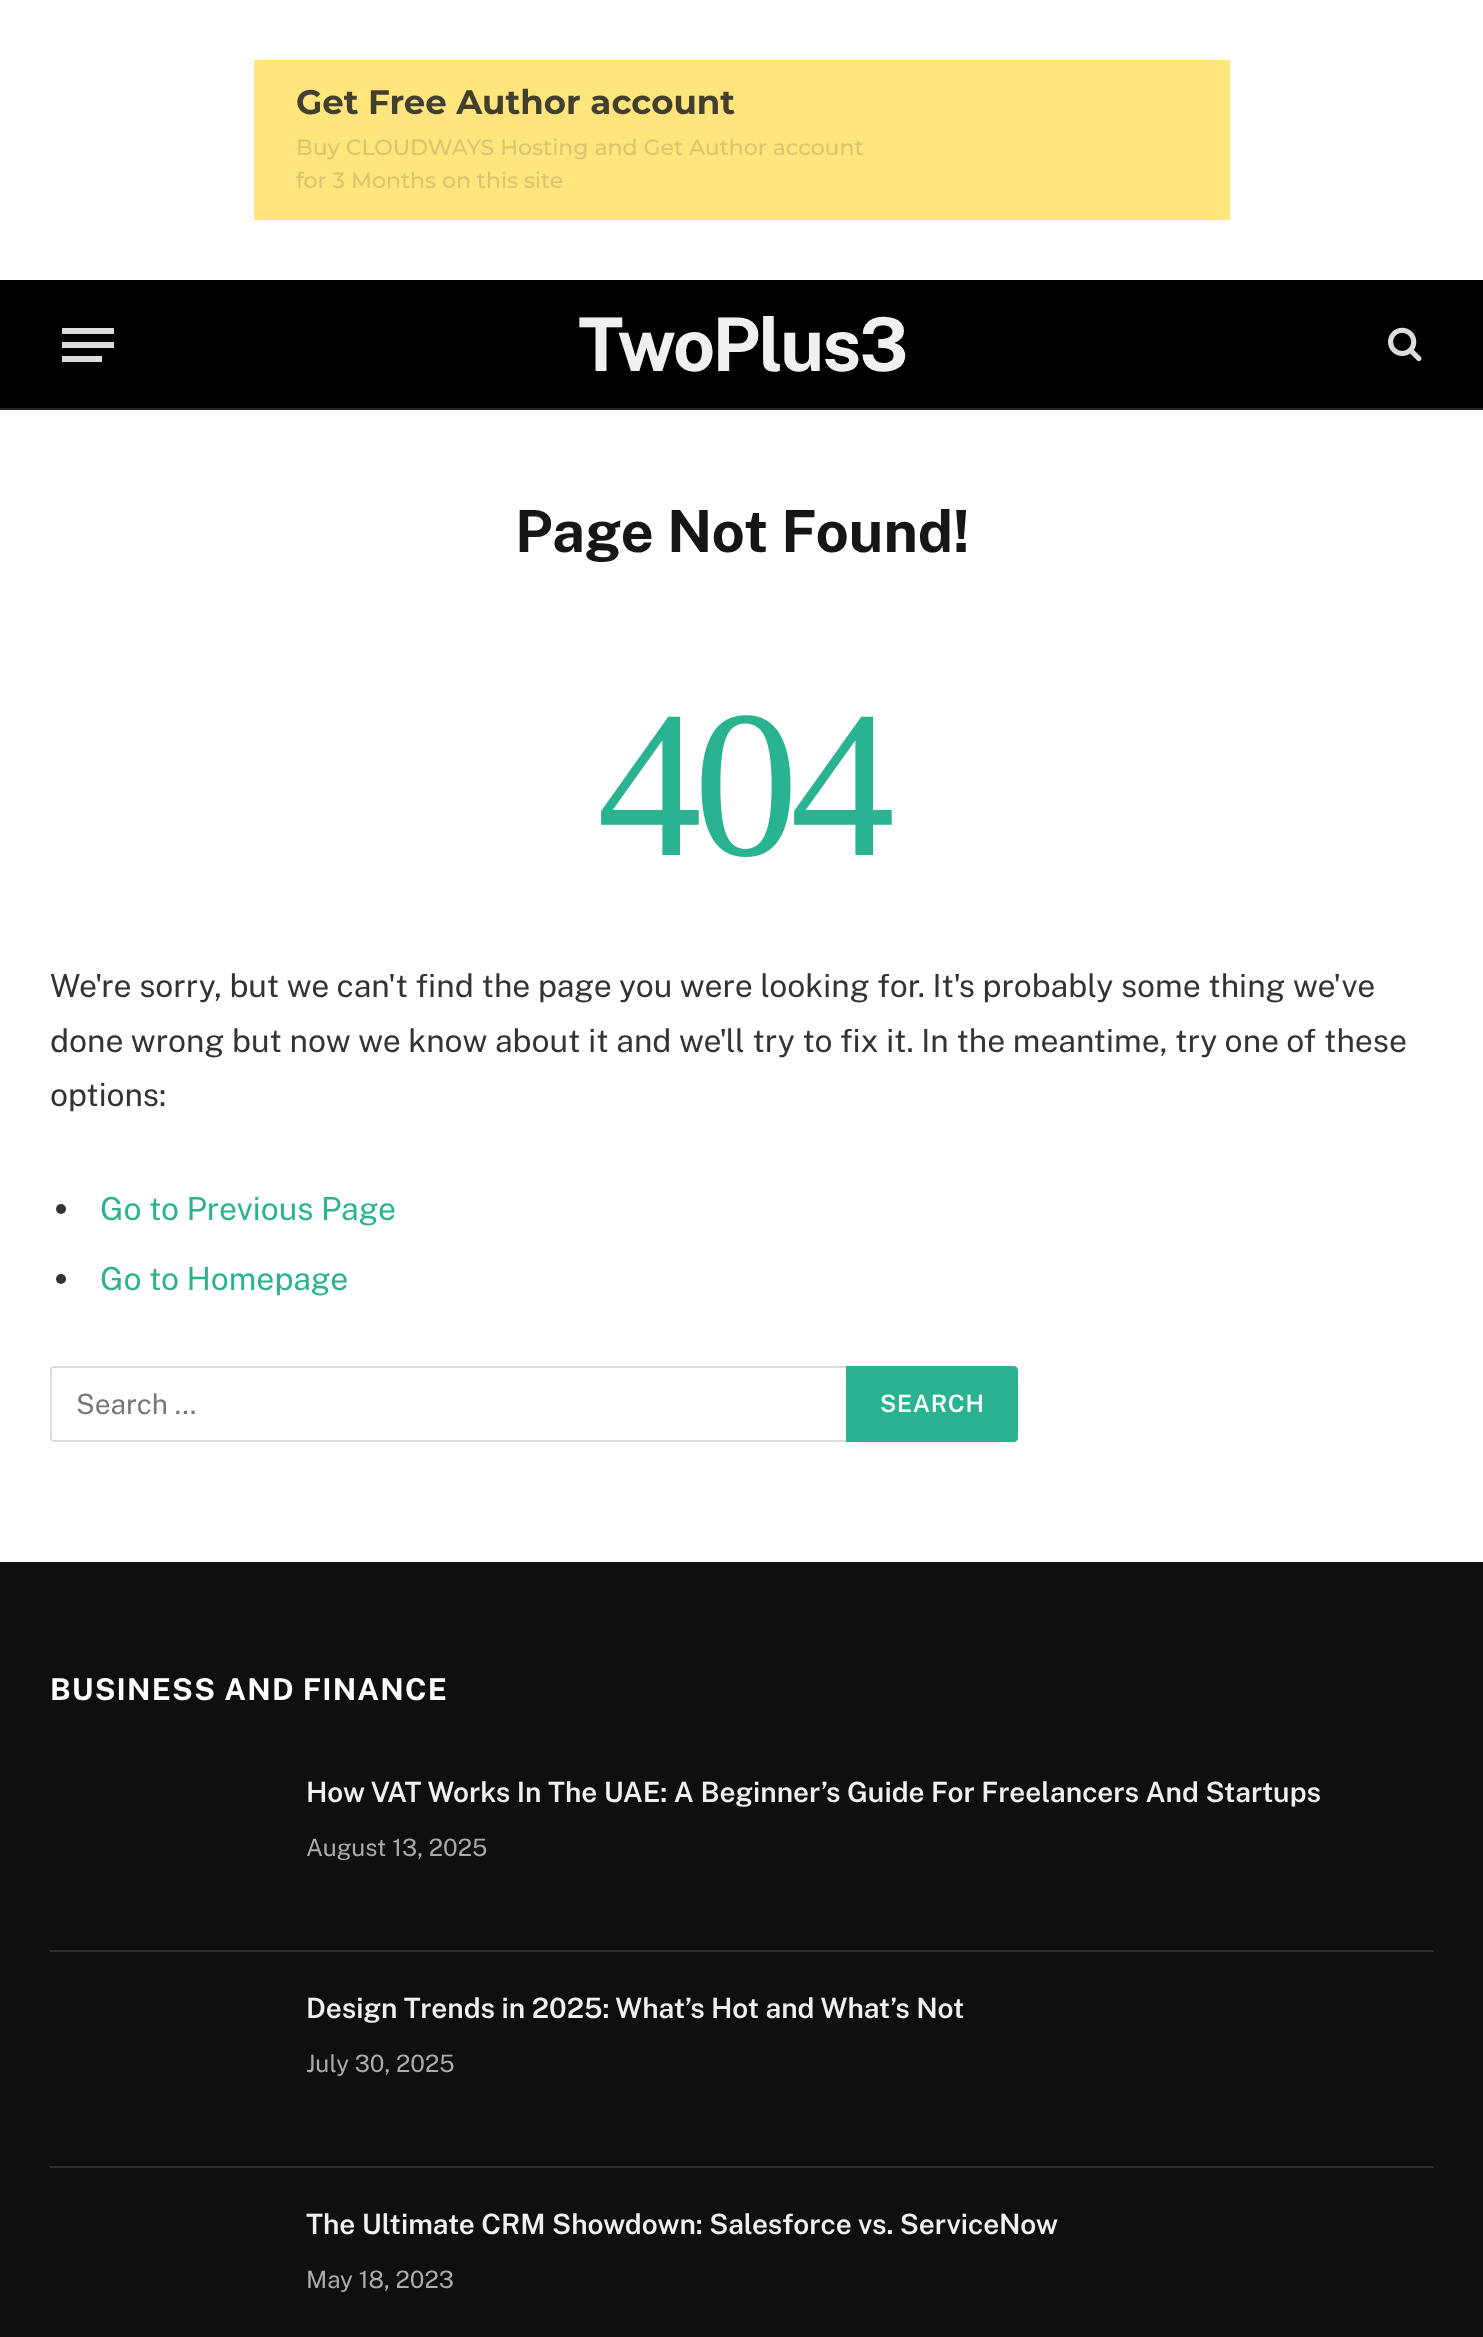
<svg xmlns="http://www.w3.org/2000/svg" width="1483" height="2337" viewBox="0 0 1483 2337">
  <defs>
    <filter id="blur1" x="-50%" y="-200%" width="200%" height="500%"><feGaussianBlur stdDeviation="7"/></filter>
  </defs>
  <rect width="100%" height="100%" fill="#ffffff"/>
  <rect x="254" y="60" width="976" height="160" fill="#ffe57c"/>
  <text x="296" y="114" font-family="Montserrat" font-size="34" font-weight="bold" fill="#423e30">Get Free Author account</text>
  <text x="296" y="155" font-family="Montserrat" font-size="22" font-weight="500" fill="#dbc56e">Buy CLOUDWAYS Hosting and Get Author account</text>
  <text x="296" y="188" font-family="Montserrat" font-size="22" font-weight="500" fill="#dbc56e">for 3 Months on this site</text>
  <rect x="0" y="280" width="1483" height="128" fill="#000000"/>
  <rect x="0" y="408" width="1483" height="2" fill="#222222"/>
  <rect x="62" y="356" width="40" height="6" fill="#dddddd"/>
  <rect x="62" y="328" width="52" height="6" fill="#dddddd"/>
  <rect x="62" y="342" width="52" height="6" fill="#dddddd"/>
  <text x="578" y="371" font-family="Public Sans" font-size="74" font-weight="bold" letter-spacing="-2" fill="#f0f0f0">TwoPlus3</text>
  <image x="1388" y="327" width="34" height="35" href="img1.png"/>
  <text x="515" y="552" font-family="Public Sans" font-size="58" font-weight="bold" fill="#161616">Page Not Found!</text>
  <text x="597" y="855" font-family="Liberation Serif" font-size="210" letter-spacing="-8.5" fill="#2ab391">404</text>
  <text x="50" y="997" font-family="Public Sans" font-size="31.9" fill="#333333">We're sorry, but we can't find the page you were looking for. It's probably some thing we've</text>
  <text x="50" y="1052" font-family="Public Sans" font-size="31.9" fill="#333333">done wrong but now we know about it and we'll try to fix it. In the meantime, try one of these</text>
  <text x="50" y="1106" font-family="Public Sans" font-size="31.9" fill="#333333">options:</text>
  <circle cx="61" cy="1209" r="5" fill="#333333"/>
  <text x="100" y="1220" font-family="Public Sans" font-size="31.9" fill="#2ab391">Go to Previous Page</text>
  <circle cx="61" cy="1279" r="5" fill="#333333"/>
  <text x="100" y="1290" font-family="Public Sans" font-size="31.9" fill="#2ab391">Go to Homepage</text>
  <rect x="51" y="1367" width="798" height="74" rx="3" fill="none" stroke="#dddddd" stroke-width="2"/>
  <text x="76" y="1414" font-family="Public Sans" font-size="28" fill="#777777">Search …</text>
  <rect x="854" y="1378" width="156" height="60" fill="#000000" fill-opacity="0.16" filter="url(#blur1)"/>
  <path d="M846 1366H1014C1016 1366 1018 1368 1018 1370V1438C1018 1440 1016 1442 1014 1442H846Z" fill="#2ab391"/>
  <text x="880" y="1412" font-family="Public Sans" font-size="24" font-weight="600" letter-spacing="0.75" fill="#ffffff">SEARCH</text>
  <rect x="0" y="1562" width="1483" height="775" fill="#0f0f11"/>
  <text x="50" y="1700" font-family="Public Sans" font-size="30" font-weight="bold" letter-spacing="1.2" fill="#ffffff">BUSINESS AND FINANCE</text>
  <text x="306" y="1802" font-family="Public Sans" font-size="28" font-weight="600" fill="#f0f0f0">How VAT Works In The UAE: A Beginner’s Guide For Freelancers And Startups</text>
  <text x="306" y="1856" font-family="Public Sans" font-size="24" fill="#ababac">August 13, 2025</text>
  <rect x="50" y="1950" width="1384" height="2" fill="#2e2e30"/>
  <text x="306" y="2018" font-family="Public Sans" font-size="28" font-weight="600" fill="#f0f0f0">Design Trends in 2025: What’s Hot and What’s Not</text>
  <text x="306" y="2072" font-family="Public Sans" font-size="24" fill="#ababac">July 30, 2025</text>
  <rect x="50" y="2166" width="1384" height="2" fill="#2e2e30"/>
  <text x="306" y="2234" font-family="Public Sans" font-size="28" font-weight="600" fill="#f0f0f0">The Ultimate CRM Showdown: Salesforce vs. ServiceNow</text>
  <text x="306" y="2288" font-family="Public Sans" font-size="24" fill="#ababac">May 18, 2023</text>
</svg>
